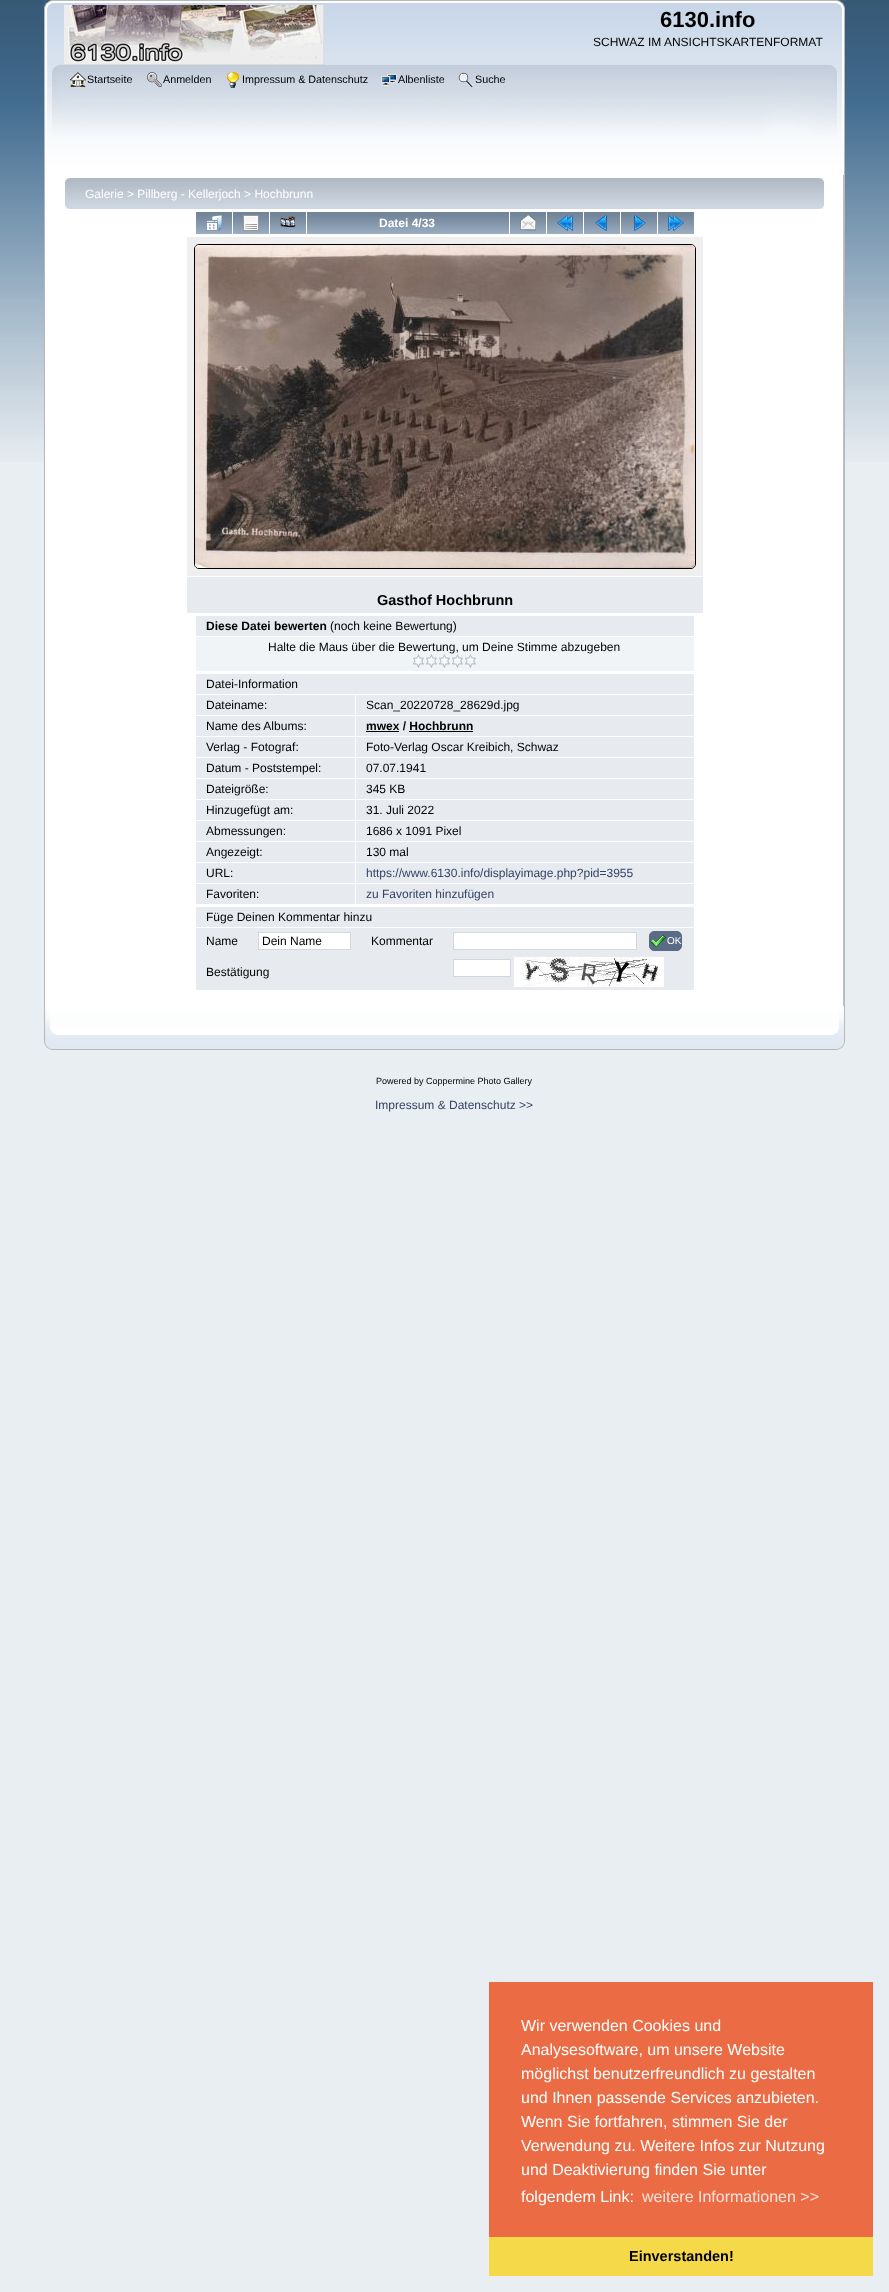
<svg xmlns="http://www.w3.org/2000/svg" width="889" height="2292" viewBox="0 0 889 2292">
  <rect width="100%" height="100%" fill="#e9eef2"/>
  <image x="0" y="0" width="889" height="462" href="img1.png"/>
  <image x="44" y="0" width="793" height="65" href="img2.png"/>
  <image x="837" y="0" width="8" height="65" href="img3.png"/>
  <image x="64" y="5" width="260" height="60" href="img4.png"/>
  <text x="660" y="27" font-family="Liberation Sans" font-size="22" font-weight="bold" fill="#000000">6130.info</text>
  <text x="593" y="46" font-family="Liberation Sans" font-size="12" fill="#000000">SCHWAZ IM ANSICHTSKARTENFORMAT</text>
  <image x="44" y="65" width="786" height="110" href="img5.png"/>
  <image x="830" y="65" width="15" height="110" href="img6.png"/>
  <image x="70" y="72" width="16" height="16" href="img7.png"/>
  <text x="87" y="83" font-family="Liberation Sans" font-size="10.75" fill="#000000">Startseite</text>
  <image x="147" y="72" width="15" height="15" href="img8.png"/>
  <text x="163" y="83" font-family="Liberation Sans" font-size="10.75" fill="#000000">Anmelden</text>
  <image x="227" y="72" width="12" height="16" href="img9.png"/>
  <text x="242" y="83" font-family="Liberation Sans" font-size="10.75" fill="#000000">Impressum &amp; Datenschutz</text>
  <image x="381" y="74" width="16" height="12" href="img10.png"/>
  <text x="398" y="83" font-family="Liberation Sans" font-size="10.75" fill="#000000">Albenliste</text>
  <image x="458" y="72" width="16" height="15" href="img11.png"/>
  <text x="475" y="83" font-family="Liberation Sans" font-size="10.75" fill="#000000">Suche</text>
  <rect x="45" y="175" width="798" height="831" fill="#ffffff"/>
  <rect x="44" y="175" width="1" height="831" fill="#b7b7b7"/>
  <image x="843" y="175" width="2" height="831" href="img12.png"/>
  <image x="65" y="178" width="754" height="31" href="img13.png"/>
  <image x="819" y="178" width="5" height="31" href="img14.png"/>
  <text x="85" y="198" font-family="Liberation Sans" font-size="12" fill="#ffffff">Galerie &gt; Pillberg - Kellerjoch &gt; Hochbrunn</text>
  <image x="196" y="212" width="36" height="22" href="img15.png"/>
  <image x="206" y="215" width="16" height="16" href="img16.png"/>
  <image x="233" y="212" width="36" height="22" href="img15.png"/>
  <image x="243" y="215" width="16" height="16" href="img17.png"/>
  <image x="270" y="212" width="36" height="22" href="img15.png"/>
  <image x="280" y="216" width="16" height="12" href="img18.png"/>
  <image x="307" y="212" width="202" height="22" href="img19.png"/>
  <text x="379" y="227" font-family="Liberation Sans" font-size="12" font-weight="bold" fill="#ffffff">Datei 4/33</text>
  <image x="510" y="212" width="36" height="22" href="img15.png"/>
  <image x="520" y="215" width="16" height="16" href="img20.png"/>
  <image x="547" y="212" width="36" height="22" href="img15.png"/>
  <image x="557" y="215" width="16" height="16" href="img21.png"/>
  <image x="584" y="212" width="36" height="22" href="img15.png"/>
  <image x="595" y="215" width="12" height="16" href="img22.png"/>
  <image x="621" y="212" width="36" height="22" href="img15.png"/>
  <image x="634" y="215" width="12" height="16" href="img23.png"/>
  <image x="658" y="212" width="36" height="22" href="img15.png"/>
  <image x="668" y="215" width="16" height="16" href="img24.png"/>
  <rect x="187" y="237" width="516" height="339" fill="#efefef"/>
  <rect x="194.5" y="244.5" width="501" height="324" rx="4.5" fill="none" stroke="#000000"/>
  <image x="195" y="245" width="500" height="323" href="img25.png"/>
  <rect x="187" y="577" width="516" height="36" fill="#e7eaef"/>
  <text x="377" y="605" font-family="Liberation Sans" font-size="14.5" font-weight="bold" fill="#000000">Gasthof Hochbrunn</text>
  <rect x="196" y="616" width="498" height="20" fill="#e7eaef"/>
  <text x="206" y="630" font-family="Liberation Sans" font-size="12" font-weight="bold" fill="#000000">Diese Datei bewerten</text>
  <text x="330" y="630" font-family="Liberation Sans" font-size="12" fill="#000000">(noch keine Bewertung)</text>
  <rect x="196" y="637" width="498" height="34" fill="#f0f4f7"/>
  <text x="268" y="651" font-family="Liberation Sans" font-size="12" fill="#000000">Halte die Maus über die Bewertung, um Deine Stimme abzugeben</text>
  <image x="412" y="654" width="13" height="14" href="img26.png"/>
  <image x="425" y="654" width="13" height="14" href="img26.png"/>
  <image x="438" y="654" width="13" height="14" href="img26.png"/>
  <image x="451" y="654" width="13" height="14" href="img26.png"/>
  <image x="464" y="654" width="13" height="14" href="img26.png"/>
  <rect x="196" y="674" width="498" height="20" fill="#e7eaef"/>
  <text x="206" y="688" font-family="Liberation Sans" font-size="12" fill="#000000">Datei-Information</text>
  <rect x="196" y="695" width="159" height="20" fill="#e7eaef"/>
  <text x="206" y="709" font-family="Liberation Sans" font-size="12" fill="#000000">Dateiname:</text>
  <rect x="356" y="695" width="338" height="20" fill="#e7eaef"/>
  <text x="366" y="709" font-family="Liberation Sans" font-size="12" fill="#000000">Scan_20220728_28629d.jpg</text>
  <rect x="196" y="716" width="159" height="20" fill="#e7eaef"/>
  <text x="206" y="730" font-family="Liberation Sans" font-size="12" fill="#000000">Name des Albums:</text>
  <rect x="356" y="716" width="338" height="20" fill="#e7eaef"/>
  <text x="366" y="730" font-family="Liberation Sans" font-size="12" font-weight="bold" fill="#000000">mwex / Hochbrunn</text>
  <rect x="366" y="731" width="33" height="1" fill="#000000"/>
  <rect x="409" y="731" width="64" height="1" fill="#000000"/>
  <rect x="196" y="737" width="159" height="20" fill="#e7eaef"/>
  <text x="206" y="751" font-family="Liberation Sans" font-size="12" fill="#000000">Verlag - Fotograf:</text>
  <rect x="356" y="737" width="338" height="20" fill="#e7eaef"/>
  <text x="366" y="751" font-family="Liberation Sans" font-size="12" fill="#000000">Foto-Verlag Oscar Kreibich, Schwaz</text>
  <rect x="196" y="758" width="159" height="20" fill="#e7eaef"/>
  <text x="206" y="772" font-family="Liberation Sans" font-size="12" fill="#000000">Datum - Poststempel:</text>
  <rect x="356" y="758" width="338" height="20" fill="#e7eaef"/>
  <text x="366" y="772" font-family="Liberation Sans" font-size="12" fill="#000000">07.07.1941</text>
  <rect x="196" y="779" width="159" height="20" fill="#e7eaef"/>
  <text x="206" y="793" font-family="Liberation Sans" font-size="12" fill="#000000">Dateigröße:</text>
  <rect x="356" y="779" width="338" height="20" fill="#e7eaef"/>
  <text x="366" y="793" font-family="Liberation Sans" font-size="12" fill="#000000">345 KB</text>
  <rect x="196" y="800" width="159" height="20" fill="#e7eaef"/>
  <text x="206" y="814" font-family="Liberation Sans" font-size="12" fill="#000000">Hinzugefügt am:</text>
  <rect x="356" y="800" width="338" height="20" fill="#e7eaef"/>
  <text x="366" y="814" font-family="Liberation Sans" font-size="12" fill="#000000">31. Juli 2022</text>
  <rect x="196" y="821" width="159" height="20" fill="#e7eaef"/>
  <text x="206" y="835" font-family="Liberation Sans" font-size="12" fill="#000000">Abmessungen:</text>
  <rect x="356" y="821" width="338" height="20" fill="#e7eaef"/>
  <text x="366" y="835" font-family="Liberation Sans" font-size="12" fill="#000000">1686 x 1091 Pixel</text>
  <rect x="196" y="842" width="159" height="20" fill="#e7eaef"/>
  <text x="206" y="856" font-family="Liberation Sans" font-size="12" fill="#000000">Angezeigt:</text>
  <rect x="356" y="842" width="338" height="20" fill="#e7eaef"/>
  <text x="366" y="856" font-family="Liberation Sans" font-size="12" fill="#000000">130 mal</text>
  <rect x="196" y="863" width="159" height="20" fill="#e7eaef"/>
  <text x="206" y="877" font-family="Liberation Sans" font-size="12" fill="#000000">URL:</text>
  <rect x="356" y="863" width="338" height="20" fill="#e7eaef"/>
  <text x="366" y="877" font-family="Liberation Sans" font-size="12" fill="#334466">https://www.6130.info/displayimage.php?pid=3955</text>
  <rect x="196" y="884" width="159" height="20" fill="#e7eaef"/>
  <text x="206" y="898" font-family="Liberation Sans" font-size="12" fill="#000000">Favoriten:</text>
  <rect x="356" y="884" width="338" height="20" fill="#e7eaef"/>
  <text x="366" y="898" font-family="Liberation Sans" font-size="12" fill="#334466">zu Favoriten hinzufügen</text>
  <rect x="196" y="907" width="498" height="20" fill="#e7eaef"/>
  <text x="206" y="921" font-family="Liberation Sans" font-size="12" fill="#000000">Füge Deinen Kommentar hinzu</text>
  <rect x="196" y="928" width="498" height="26" fill="#e7eaef"/>
  <text x="206" y="945" font-family="Liberation Sans" font-size="12" fill="#000000">Name</text>
  <rect x="258.5" y="932.5" width="92" height="17" fill="#ffffff" stroke="#d1d7dc"/>
  <text x="262" y="945" font-family="Liberation Sans" font-size="12" fill="#000000">Dein Name</text>
  <text x="371" y="945" font-family="Liberation Sans" font-size="12" fill="#000000">Kommentar</text>
  <rect x="453.5" y="932.5" width="183" height="17" fill="#ffffff" stroke="#d1d7dc"/>
  <rect x="649.5" y="931.5" width="32" height="19" rx="4.5" fill="#5a6c85" stroke="#5a6c85"/>
  <image x="650" y="935" width="16" height="12" href="img27.png"/>
  <text x="667" y="944" font-family="Liberation Sans" font-size="10" fill="#ffffff">OK</text>
  <rect x="196" y="954" width="498" height="36" fill="#e7eaef"/>
  <text x="206" y="976" font-family="Liberation Sans" font-size="12" fill="#000000">Bestätigung</text>
  <rect x="453.5" y="959.5" width="57" height="17" fill="#ffffff" stroke="#d1d7dc"/>
  <image x="514" y="957" width="150" height="30" href="img28.png"/>
  <image x="44" y="1006" width="788" height="44" href="img29.png"/>
  <image x="832" y="1006" width="13" height="44" href="img30.png"/>
  <text x="376" y="1084" font-family="Liberation Sans" font-size="9" fill="#000000">Powered by Coppermine Photo Gallery</text>
  <text x="375" y="1109" font-family="Liberation Sans" font-size="12" fill="#334466">Impressum &amp; Datenschutz &gt;&gt;</text>
  <rect x="489" y="1982" width="384" height="255" fill="#eb6c44"/>
  <text x="521" y="2031" font-family="Liberation Sans" font-size="16" fill="#ffffff">Wir verwenden Cookies und</text>
  <text x="521" y="2055" font-family="Liberation Sans" font-size="16" fill="#ffffff">Analysesoftware, um unsere Website</text>
  <text x="521" y="2079" font-family="Liberation Sans" font-size="16" fill="#ffffff">möglichst benutzerfreundlich zu gestalten</text>
  <text x="521" y="2103" font-family="Liberation Sans" font-size="16" fill="#ffffff">und Ihnen passende Services anzubieten.</text>
  <text x="521" y="2127" font-family="Liberation Sans" font-size="16" fill="#ffffff">Wenn Sie fortfahren, stimmen Sie der</text>
  <text x="521" y="2151" font-family="Liberation Sans" font-size="16" fill="#ffffff">Verwendung zu. Weitere Infos zur Nutzung</text>
  <text x="521" y="2175" font-family="Liberation Sans" font-size="16" fill="#ffffff">und Deaktivierung finden Sie unter</text>
  <text x="521" y="2202" font-family="Liberation Sans" font-size="16" fill="#ffffff">folgendem Link:</text>
  <text x="642" y="2202" font-family="Liberation Sans" font-size="16" fill="#fbe2da">weitere Informationen &gt;&gt;</text>
  <rect x="489" y="2237" width="384" height="39" fill="#f5d948"/>
  <text x="629" y="2261" font-family="Liberation Sans" font-size="14.5" font-weight="bold" fill="#000000">Einverstanden!</text>
</svg>
